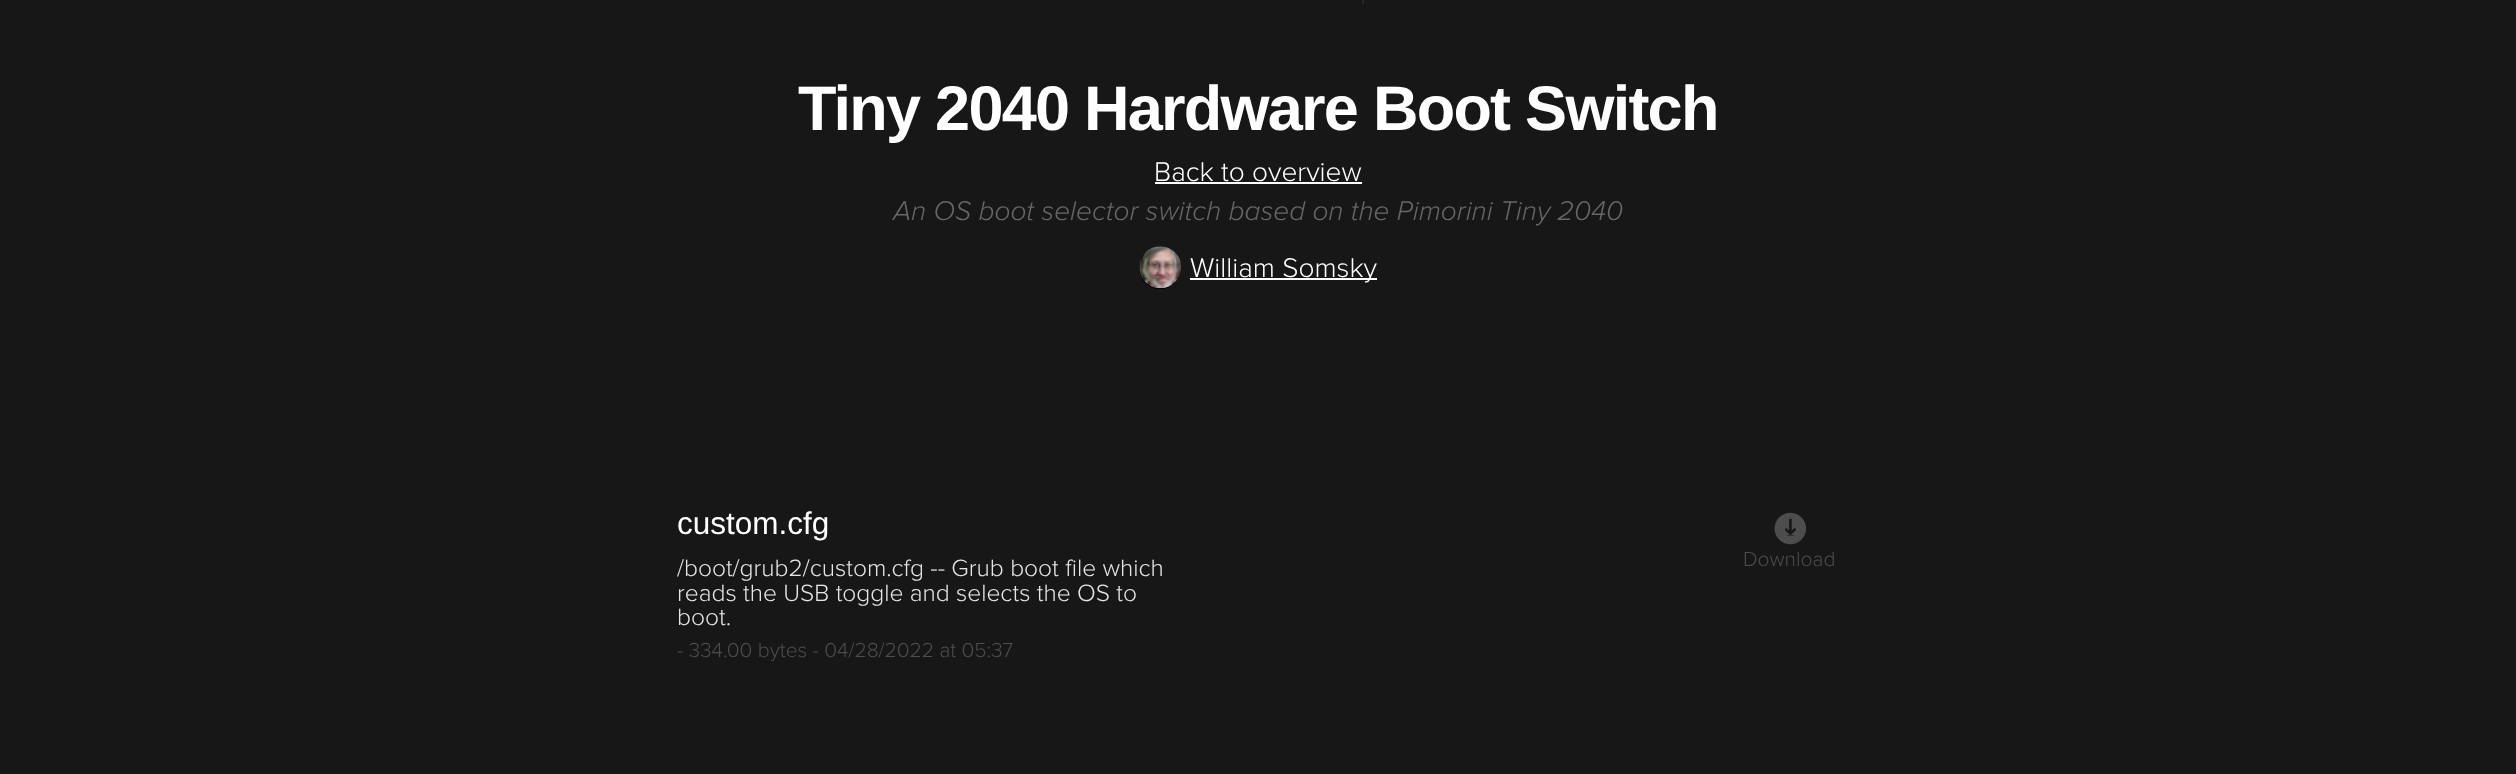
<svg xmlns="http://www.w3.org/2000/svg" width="2516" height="774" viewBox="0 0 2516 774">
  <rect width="100%" height="100%" fill="#171717"/>
  <rect x="1362" y="0" width="2" height="4" fill="#272727"/>
  <text x="798" y="130" font-family="Liberation Sans" font-size="63" font-weight="bold" letter-spacing="-1.75" fill="#ffffff">Tiny 2040 Hardware Boot Switch</text>
  <text x="1154" y="181" font-family="Proxima Nova" font-size="28" font-weight="300" fill="#ffffff">Back to overview</text>
  <rect x="1155" y="182" width="207" height="2" fill="#ffffff"/>
  <text x="893" y="220" font-family="Proxima Nova" font-size="28" font-weight="300" font-style="italic" fill="#676767">An OS boot selector switch based on the Pimorini Tiny 2040</text>
  <circle cx="1160" cy="268" r="21" fill="#000000"/>
  <image x="1139" y="246" width="42" height="43" href="img1.png"/>
  <rect x="1190" y="278" width="187" height="2" fill="#ffffff"/>
  <text x="1190" y="277" font-family="Proxima Nova" font-size="28" font-weight="300" fill="#ffffff">William Somsky</text>
  <text x="677" y="534" font-family="Liberation Sans" font-size="31.5" fill="#ffffff">custom.cfg</text>
  <text x="677" y="576" font-family="Proxima Nova" font-size="24.5" font-weight="300" fill="#e6e6e6">/boot/grub2/custom.cfg -- Grub boot file which</text>
  <text x="677" y="601" font-family="Proxima Nova" font-size="24.5" font-weight="300" fill="#e6e6e6">reads the USB toggle and selects the OS to</text>
  <text x="677" y="625" font-family="Proxima Nova" font-size="24.5" font-weight="300" fill="#e6e6e6">boot.</text>
  <text x="677" y="657" font-family="Proxima Nova" font-size="21" font-weight="300" fill="#4d4d4d">- 334.00 bytes - 04/28/2022 at 05:37</text>
  <image x="1774" y="512" width="32" height="33" href="img2.png"/>
  <text x="1743" y="566" font-family="Proxima Nova" font-size="21" font-weight="300" fill="#4d4d4d">Download</text>
</svg>
